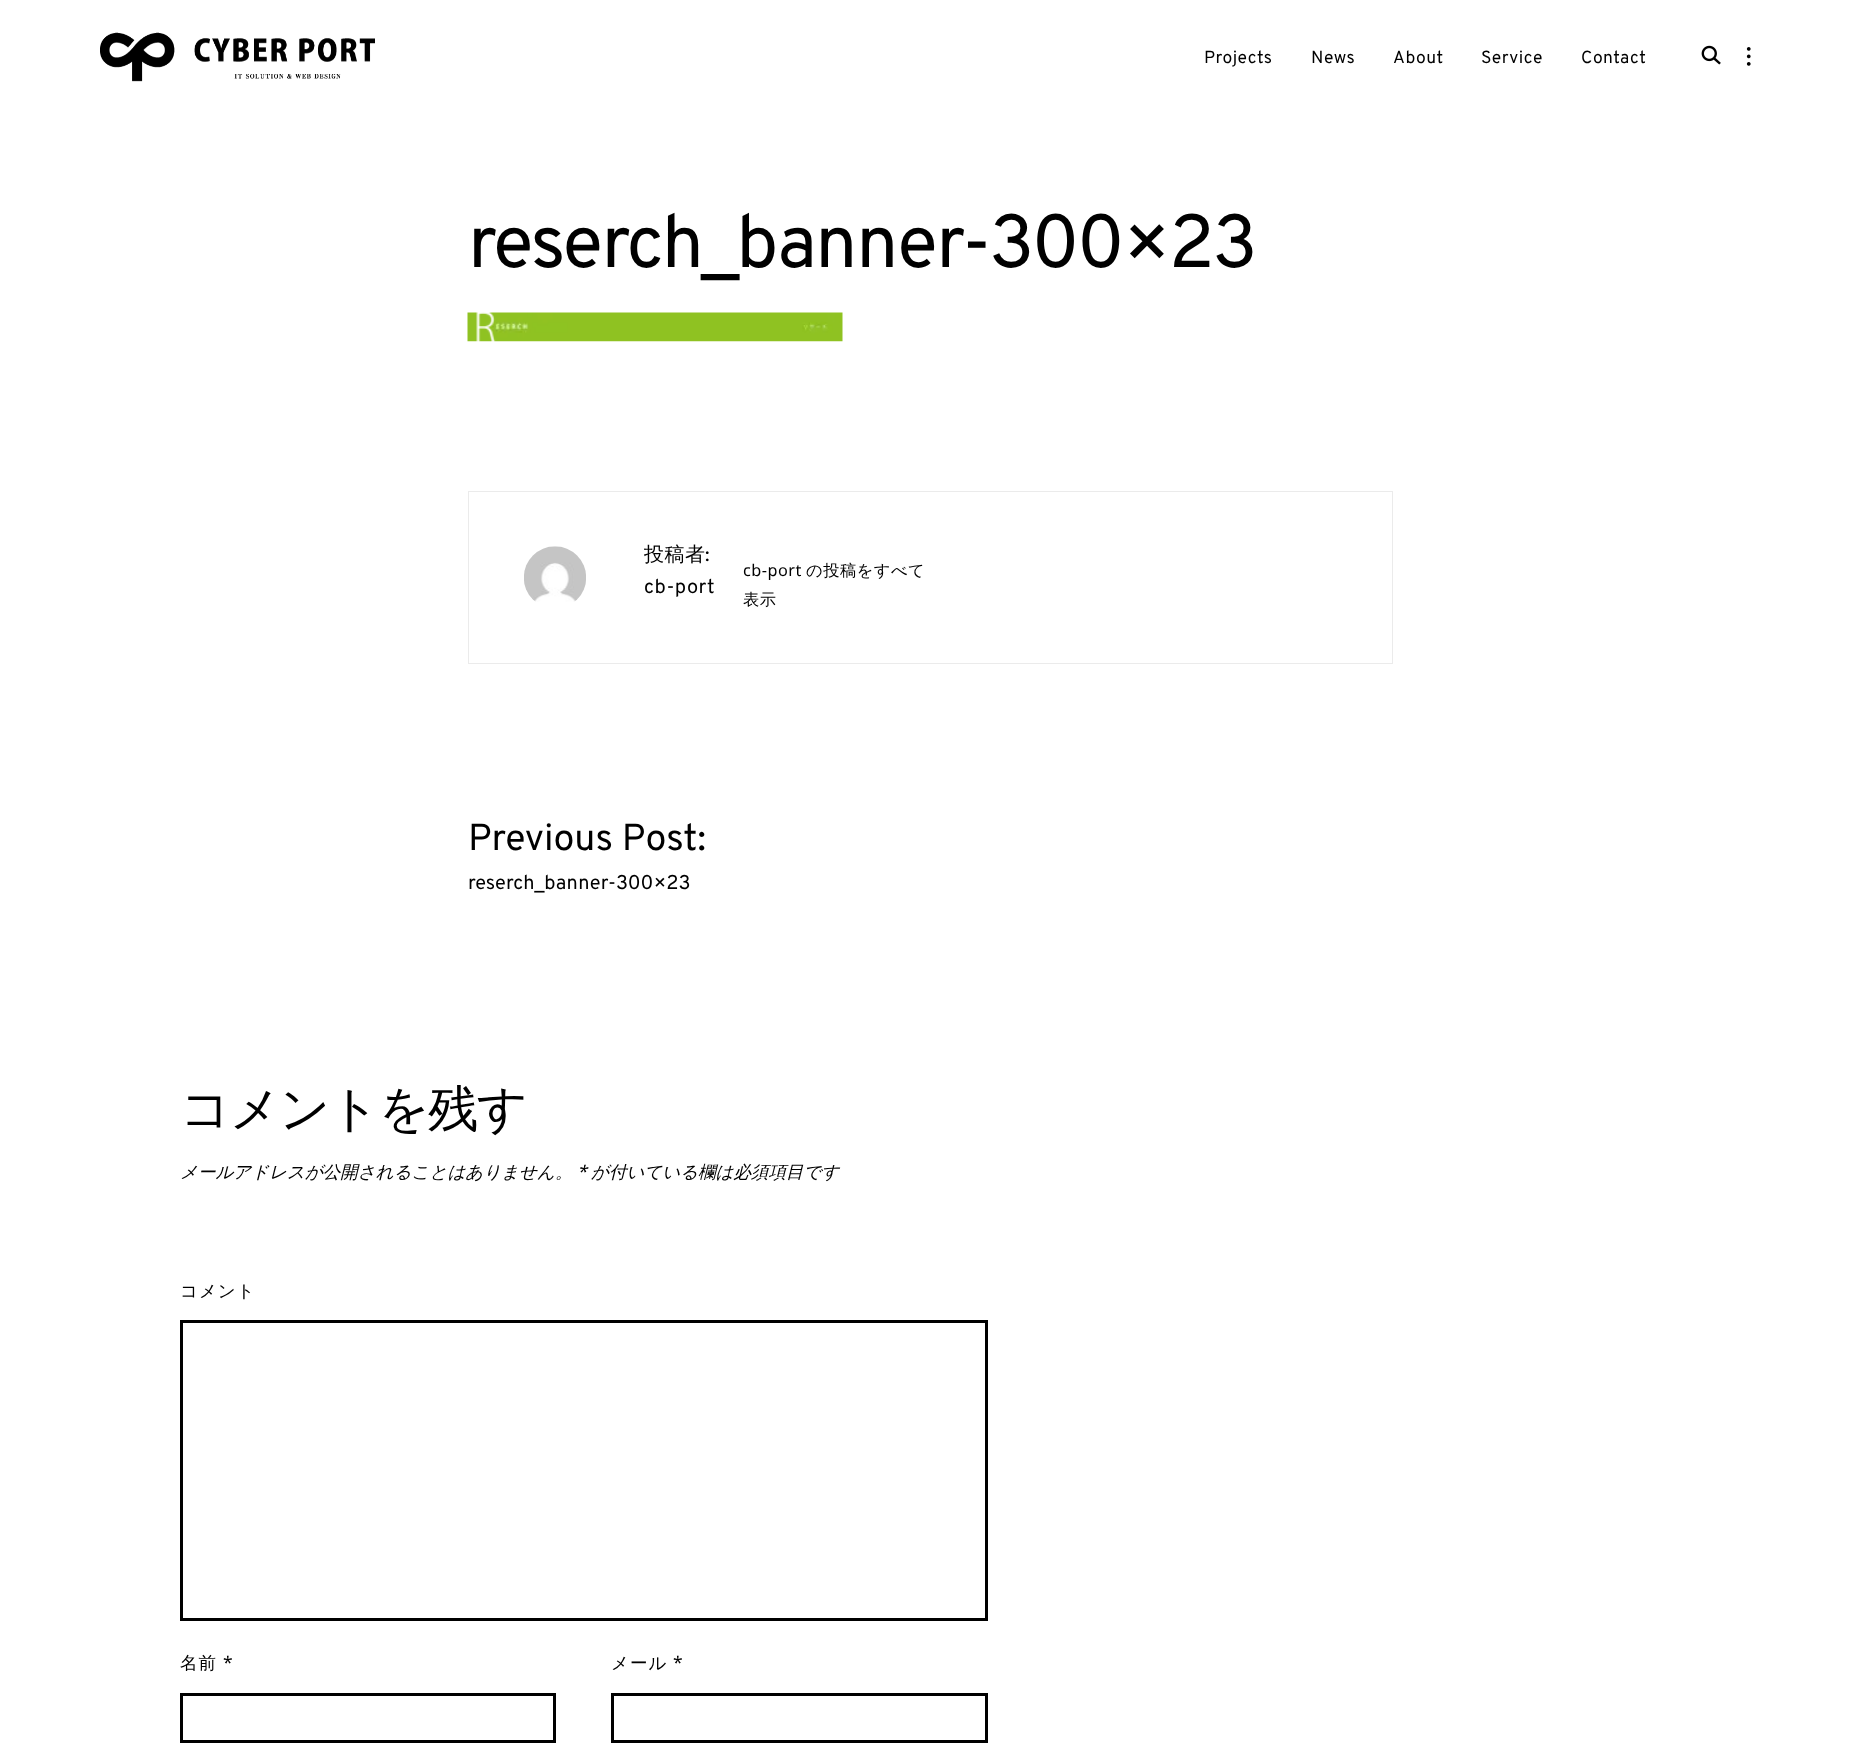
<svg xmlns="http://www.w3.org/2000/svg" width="1860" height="1757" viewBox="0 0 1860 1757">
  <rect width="100%" height="100%" fill="#ffffff"/>
  <image x="100" y="32" width="275" height="50" href="img1.png"/>
  <text x="1204" y="63" font-family="Overpass" font-size="17.5" letter-spacing="0.5" fill="#000000">Projects</text>
  <text x="1311" y="63" font-family="Overpass" font-size="17.5" letter-spacing="0.5" fill="#000000">News</text>
  <text x="1393" y="63" font-family="Overpass" font-size="17.5" letter-spacing="0.5" fill="#000000">About</text>
  <text x="1481" y="63" font-family="Overpass" font-size="17.5" letter-spacing="0.5" fill="#000000">Service</text>
  <text x="1581" y="63" font-family="Overpass" font-size="17.5" letter-spacing="0.5" fill="#000000">Contact</text>
  <image x="1701" y="45" width="20" height="20" href="img2.png"/>
  <image x="1746" y="47" width="5" height="19" href="img3.png"/>
  <text x="468" y="267" font-family="Overpass" font-size="75" letter-spacing="-2.25" fill="#000000">reserch_banner-300×23</text>
  <image x="467" y="312" width="376" height="30" href="img4.png"/>
  <rect x="468.5" y="491.5" width="924" height="172" fill="none" stroke="#ebebeb"/>
  <image x="524" y="546" width="62" height="56" href="img5.png"/>
  <text x="644" y="561" font-family="WenQuanYi Zen Hei" font-size="20" font-weight="500" letter-spacing="0.5" fill="#000000">投稿者</text>
  <text x="705" y="561" font-family="Overpass" font-size="20" letter-spacing="0.5" fill="#000000">:</text>
  <text x="644" y="593" font-family="Overpass" font-size="20" letter-spacing="0.5" fill="#000000">cb-port</text>
  <text x="743" y="576" font-family="Noto Sans" font-size="16.25" letter-spacing="0.5" fill="#000000">cb-port</text>
  <text x="806" y="576" font-family="WenQuanYi Zen Hei" font-size="16.25" font-weight="500" letter-spacing="0.5" fill="#000000">の投稿をすべて</text>
  <text x="743" y="605" font-family="WenQuanYi Zen Hei" font-size="16.25" font-weight="500" letter-spacing="0.5" fill="#000000">表示</text>
  <text x="468" y="850" font-family="Overpass" font-size="37.5" fill="#000000">Previous Post:</text>
  <text x="468" y="889" font-family="Overpass" font-size="20" fill="#000000">reserch_banner-300×23</text>
  <text x="180" y="1126" font-family="WenQuanYi Zen Hei" font-size="50" font-weight="500" letter-spacing="-1.5" fill="#000000">コメントを残す</text>
  <text x="180" y="1178" font-family="WenQuanYi Zen Hei" font-size="17.5" font-weight="500" font-style="italic" fill="#000000">メールアドレスが公開されることはありません。</text>
  <text x="577" y="1178" font-family="Noto Sans" font-size="17.5" font-style="italic" fill="#000000">*</text>
  <text x="591" y="1178" font-family="WenQuanYi Zen Hei" font-size="17.5" font-weight="500" font-style="italic" fill="#000000">が付いている欄は必須項目です</text>
  <text x="180" y="1297" font-family="WenQuanYi Zen Hei" font-size="17.5" font-weight="500" letter-spacing="1" fill="#000000">コメント</text>
  <rect x="181.5" y="1321.5" width="805" height="298" fill="none" stroke="#000000" stroke-width="3"/>
  <text x="180" y="1669" font-family="WenQuanYi Zen Hei" font-size="17.5" font-weight="500" letter-spacing="1" fill="#000000">名前</text>
  <text x="223" y="1669" font-family="Noto Sans" font-size="17.5" letter-spacing="1" fill="#000000">*</text>
  <rect x="181.5" y="1694.5" width="373" height="47" fill="none" stroke="#000000" stroke-width="3"/>
  <text x="611" y="1669" font-family="WenQuanYi Zen Hei" font-size="17.5" font-weight="500" letter-spacing="1" fill="#000000">メール</text>
  <text x="673" y="1669" font-family="Noto Sans" font-size="17.5" letter-spacing="1" fill="#000000">*</text>
  <rect x="612.5" y="1694.5" width="374" height="47" fill="none" stroke="#000000" stroke-width="3"/>
</svg>
